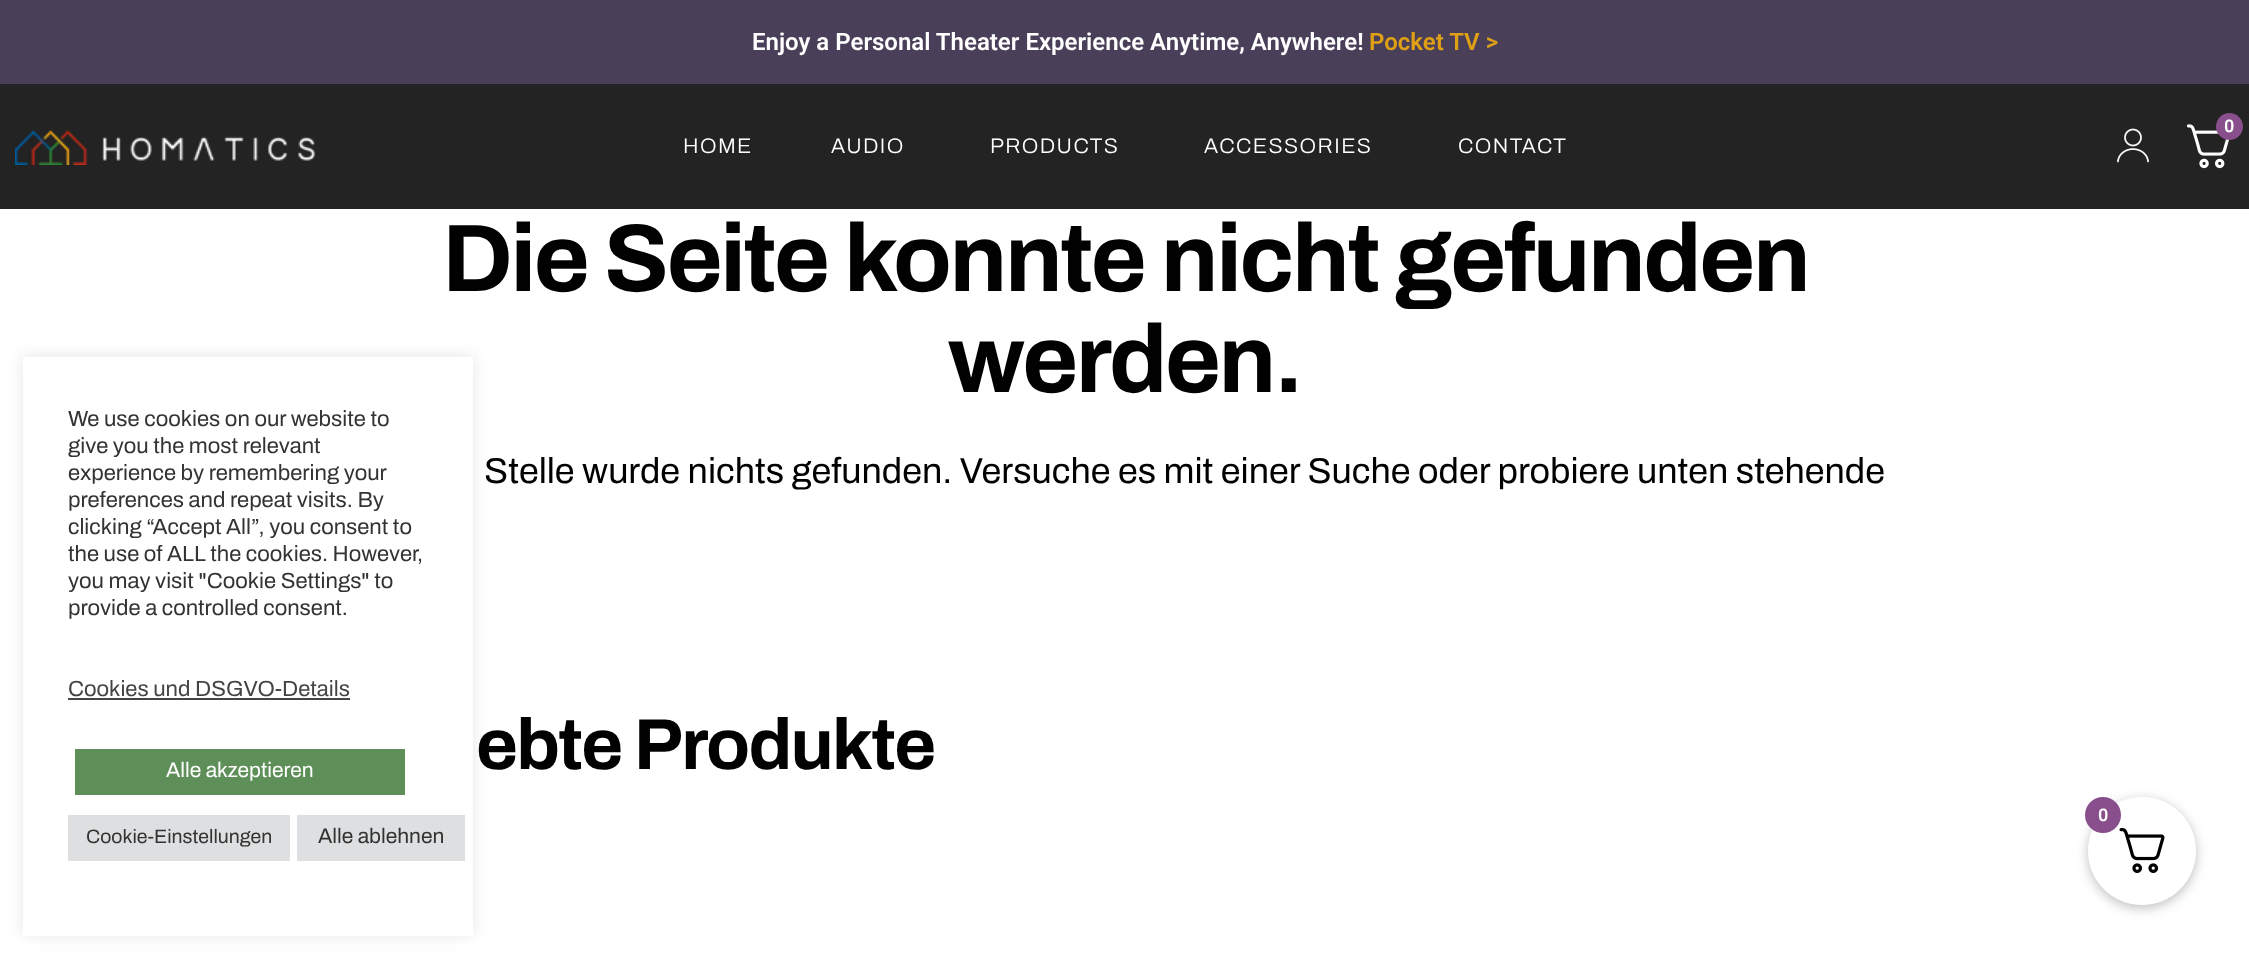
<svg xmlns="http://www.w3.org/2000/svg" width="2249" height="958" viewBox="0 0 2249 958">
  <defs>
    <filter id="blur1" x="-50%" y="-200%" width="200%" height="500%"><feGaussianBlur stdDeviation="7.5"/></filter>
    <filter id="blur2" x="-50%" y="-200%" width="200%" height="500%"><feGaussianBlur stdDeviation="6"/></filter>
  </defs>
  <rect width="100%" height="100%" fill="#ffffff"/>
  <rect x="0" y="0" width="2249" height="84" fill="#493f59"/>
  <text x="752" y="50" font-family="Roboto" font-size="24" font-weight="600" fill="#ffffff">Enjoy a Personal Theater Experience Anytime, Anywhere!</text>
  <text x="1369" y="50" font-family="Roboto" font-size="24" font-weight="600" fill="#e0a015">Pocket TV &gt;</text>
  <rect x="0" y="84" width="2249" height="125" fill="#232323"/>
  <image x="2186" y="124" width="44" height="45" href="img1.png"/>
  <circle cx="2229.5" cy="126.5" r="13.5" fill="#894f8c"/>
  <text x="2224" y="132" font-family="Archivo" font-size="18" font-weight="600" fill="#ffffff">0</text>
  <image x="2117" y="128" width="32" height="35" href="img2.png"/>
  <image x="15" y="130" width="300" height="35" href="img3.png"/>
  <text x="683" y="153" font-family="Archivo" font-size="21" font-weight="300" letter-spacing="1.4" fill="#ffffff">HOME</text>
  <text x="831" y="153" font-family="Archivo" font-size="21" font-weight="300" letter-spacing="1.4" fill="#ffffff">AUDIO</text>
  <text x="990" y="153" font-family="Archivo" font-size="21" font-weight="300" letter-spacing="1.4" fill="#ffffff">PRODUCTS</text>
  <text x="1204" y="153" font-family="Archivo" font-size="21" font-weight="300" letter-spacing="1.4" fill="#ffffff">ACCESSORIES</text>
  <text x="1458" y="153" font-family="Archivo" font-size="21" font-weight="300" letter-spacing="1.4" fill="#ffffff">CONTACT</text>
  <rect x="23" y="356" width="450" height="579" fill="#acabab" fill-opacity="0.3" filter="url(#blur1)"/>
  <rect x="23" y="357" width="450" height="579" fill="#ffffff"/>
  <text x="68" y="426" font-family="Archivo" font-size="22" fill="#333333">We use cookies on our website to</text>
  <text x="68" y="453" font-family="Archivo" font-size="22" fill="#333333">give you the most relevant</text>
  <text x="68" y="480" font-family="Archivo" font-size="22" fill="#333333">experience by remembering your</text>
  <text x="68" y="507" font-family="Archivo" font-size="22" fill="#333333">preferences and repeat visits. By</text>
  <text x="68" y="534" font-family="Archivo" font-size="22" fill="#333333">clicking “Accept All”, you consent to</text>
  <text x="68" y="561" font-family="Archivo" font-size="22" fill="#333333">the use of ALL the cookies. However,</text>
  <text x="68" y="588" font-family="Archivo" font-size="22" fill="#333333">you may visit "Cookie Settings" to</text>
  <text x="68" y="615" font-family="Archivo" font-size="22" fill="#333333">provide a controlled consent.</text>
  <text x="68" y="696" font-family="Archivo" font-size="22" fill="#444444">Cookies und DSGVO-Details</text>
  <rect x="68" y="698" width="282" height="2" fill="#444444"/>
  <rect x="75" y="749" width="330" height="46" fill="#5e8f58"/>
  <text x="166" y="777" font-family="Archivo" font-size="21" fill="#ffffff">Alle akzeptieren</text>
  <rect x="68" y="815" width="222" height="46" fill="#dedfe0"/>
  <text x="86" y="843" font-family="Archivo" font-size="19.5" fill="#333333">Cookie-Einstellungen</text>
  <rect x="297" y="815" width="168" height="46" fill="#dedfe0"/>
  <text x="318" y="843" font-family="Archivo" font-size="21" fill="#333333">Alle ablehnen</text>
  <text x="442" y="291" font-family="Archivo" font-size="96" font-weight="bold" letter-spacing="-2.4" fill="#010101">Die Seite konnte nicht gefunden</text>
  <text x="948" y="392" font-family="Archivo" font-size="96" font-weight="bold" letter-spacing="-2.4" fill="#010101">werden.</text>
  <text x="484" y="483" font-family="Archivo" font-size="36" fill="#010101">Stelle wurde nichts gefunden. Versuche es mit einer Suche oder probiere unten stehende</text>
  <text x="476" y="769" font-family="Archivo" font-size="72" font-weight="bold" letter-spacing="-1.75" fill="#010101">ebte Produkte</text>
  <rect x="2088" y="800" width="108" height="108" rx="54" fill="#000000" fill-opacity="0.25" filter="url(#blur2)"/>
  <circle cx="2142" cy="851" r="54" fill="#ffffff"/>
  <image x="2119" y="828" width="46" height="45" href="img4.png"/>
  <circle cx="2103" cy="815" r="18" fill="#894f8c"/>
  <text x="2098" y="821" font-family="Archivo" font-size="18" font-weight="600" fill="#ffffff">0</text>
</svg>
